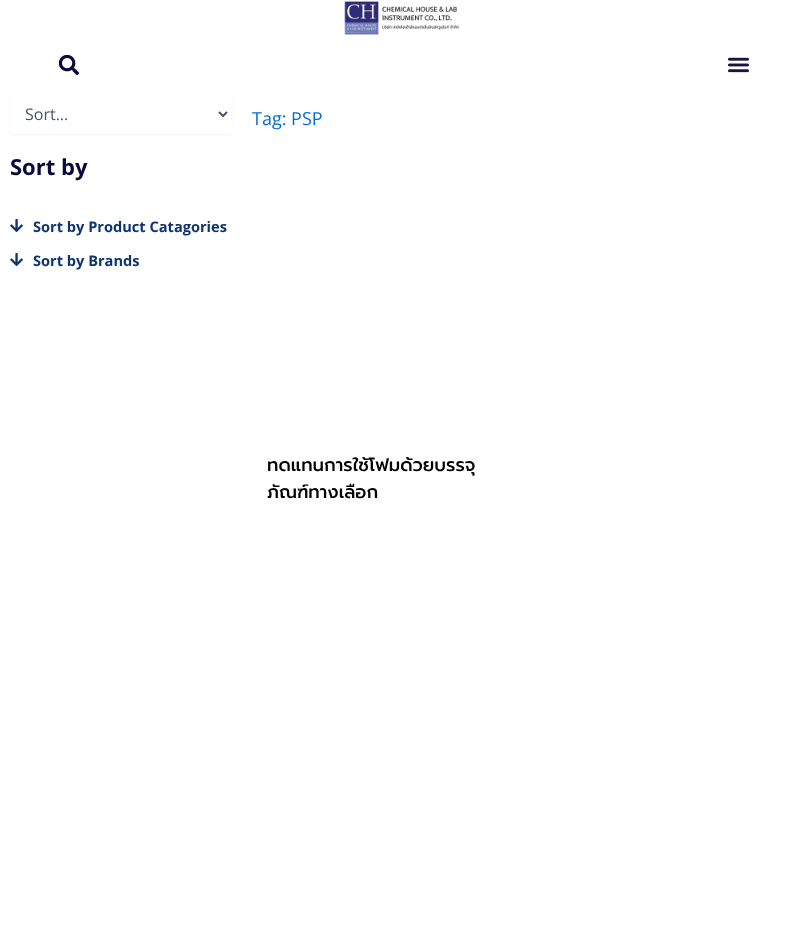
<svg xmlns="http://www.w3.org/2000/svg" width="806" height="938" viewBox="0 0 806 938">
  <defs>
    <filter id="blur1" x="-50%" y="-200%" width="200%" height="500%"><feGaussianBlur stdDeviation="1"/></filter>
  </defs>
  <rect width="100%" height="100%" fill="#ffffff"/>
  <image x="344" y="1" width="115" height="34" href="img1.png"/>
  <image x="59" y="55" width="20" height="20" href="img2.png"/>
  <image x="728" y="57" width="21" height="16" href="img3.png"/>
  <rect x="10" y="95" width="222" height="40" rx="4" fill="#000000" fill-opacity="0.05" filter="url(#blur1)"/>
  <rect x="10" y="94" width="222" height="40" rx="4" fill="#ffffff"/>
  <path d="M219 112L223 116L227 112" fill="none" stroke="#475569" stroke-width="2"/>
  <text x="25" y="120" font-family="Open Sans" font-size="16" fill="#475569">Sort...</text>
  <text x="10" y="175" font-family="Open Sans" font-size="22" font-weight="bold" fill="#0a093d">Sort by</text>
  <image x="10" y="218" width="13" height="14" href="img4.png"/>
  <text x="33" y="232" font-family="Open Sans" font-size="14.6" font-weight="bold" fill="#0e3472">Sort by Product Catagories</text>
  <image x="10" y="252" width="13" height="14" href="img4.png"/>
  <text x="33" y="266" font-family="Open Sans" font-size="14.6" font-weight="bold" fill="#0e3472">Sort by Brands</text>
  <text x="252" y="125" font-family="Open Sans" font-size="18" fill="#046bd2">Tag: PSP</text>
  <text x="267" y="471" font-family="Prompt" font-size="18" font-weight="500" fill="#000000">ทดแทนการใช้โฟมด้วยบรรจุ</text>
  <text x="267" y="498" font-family="Prompt" font-size="18" font-weight="500" fill="#000000">ภัณฑ์ทางเลือก</text>
</svg>
